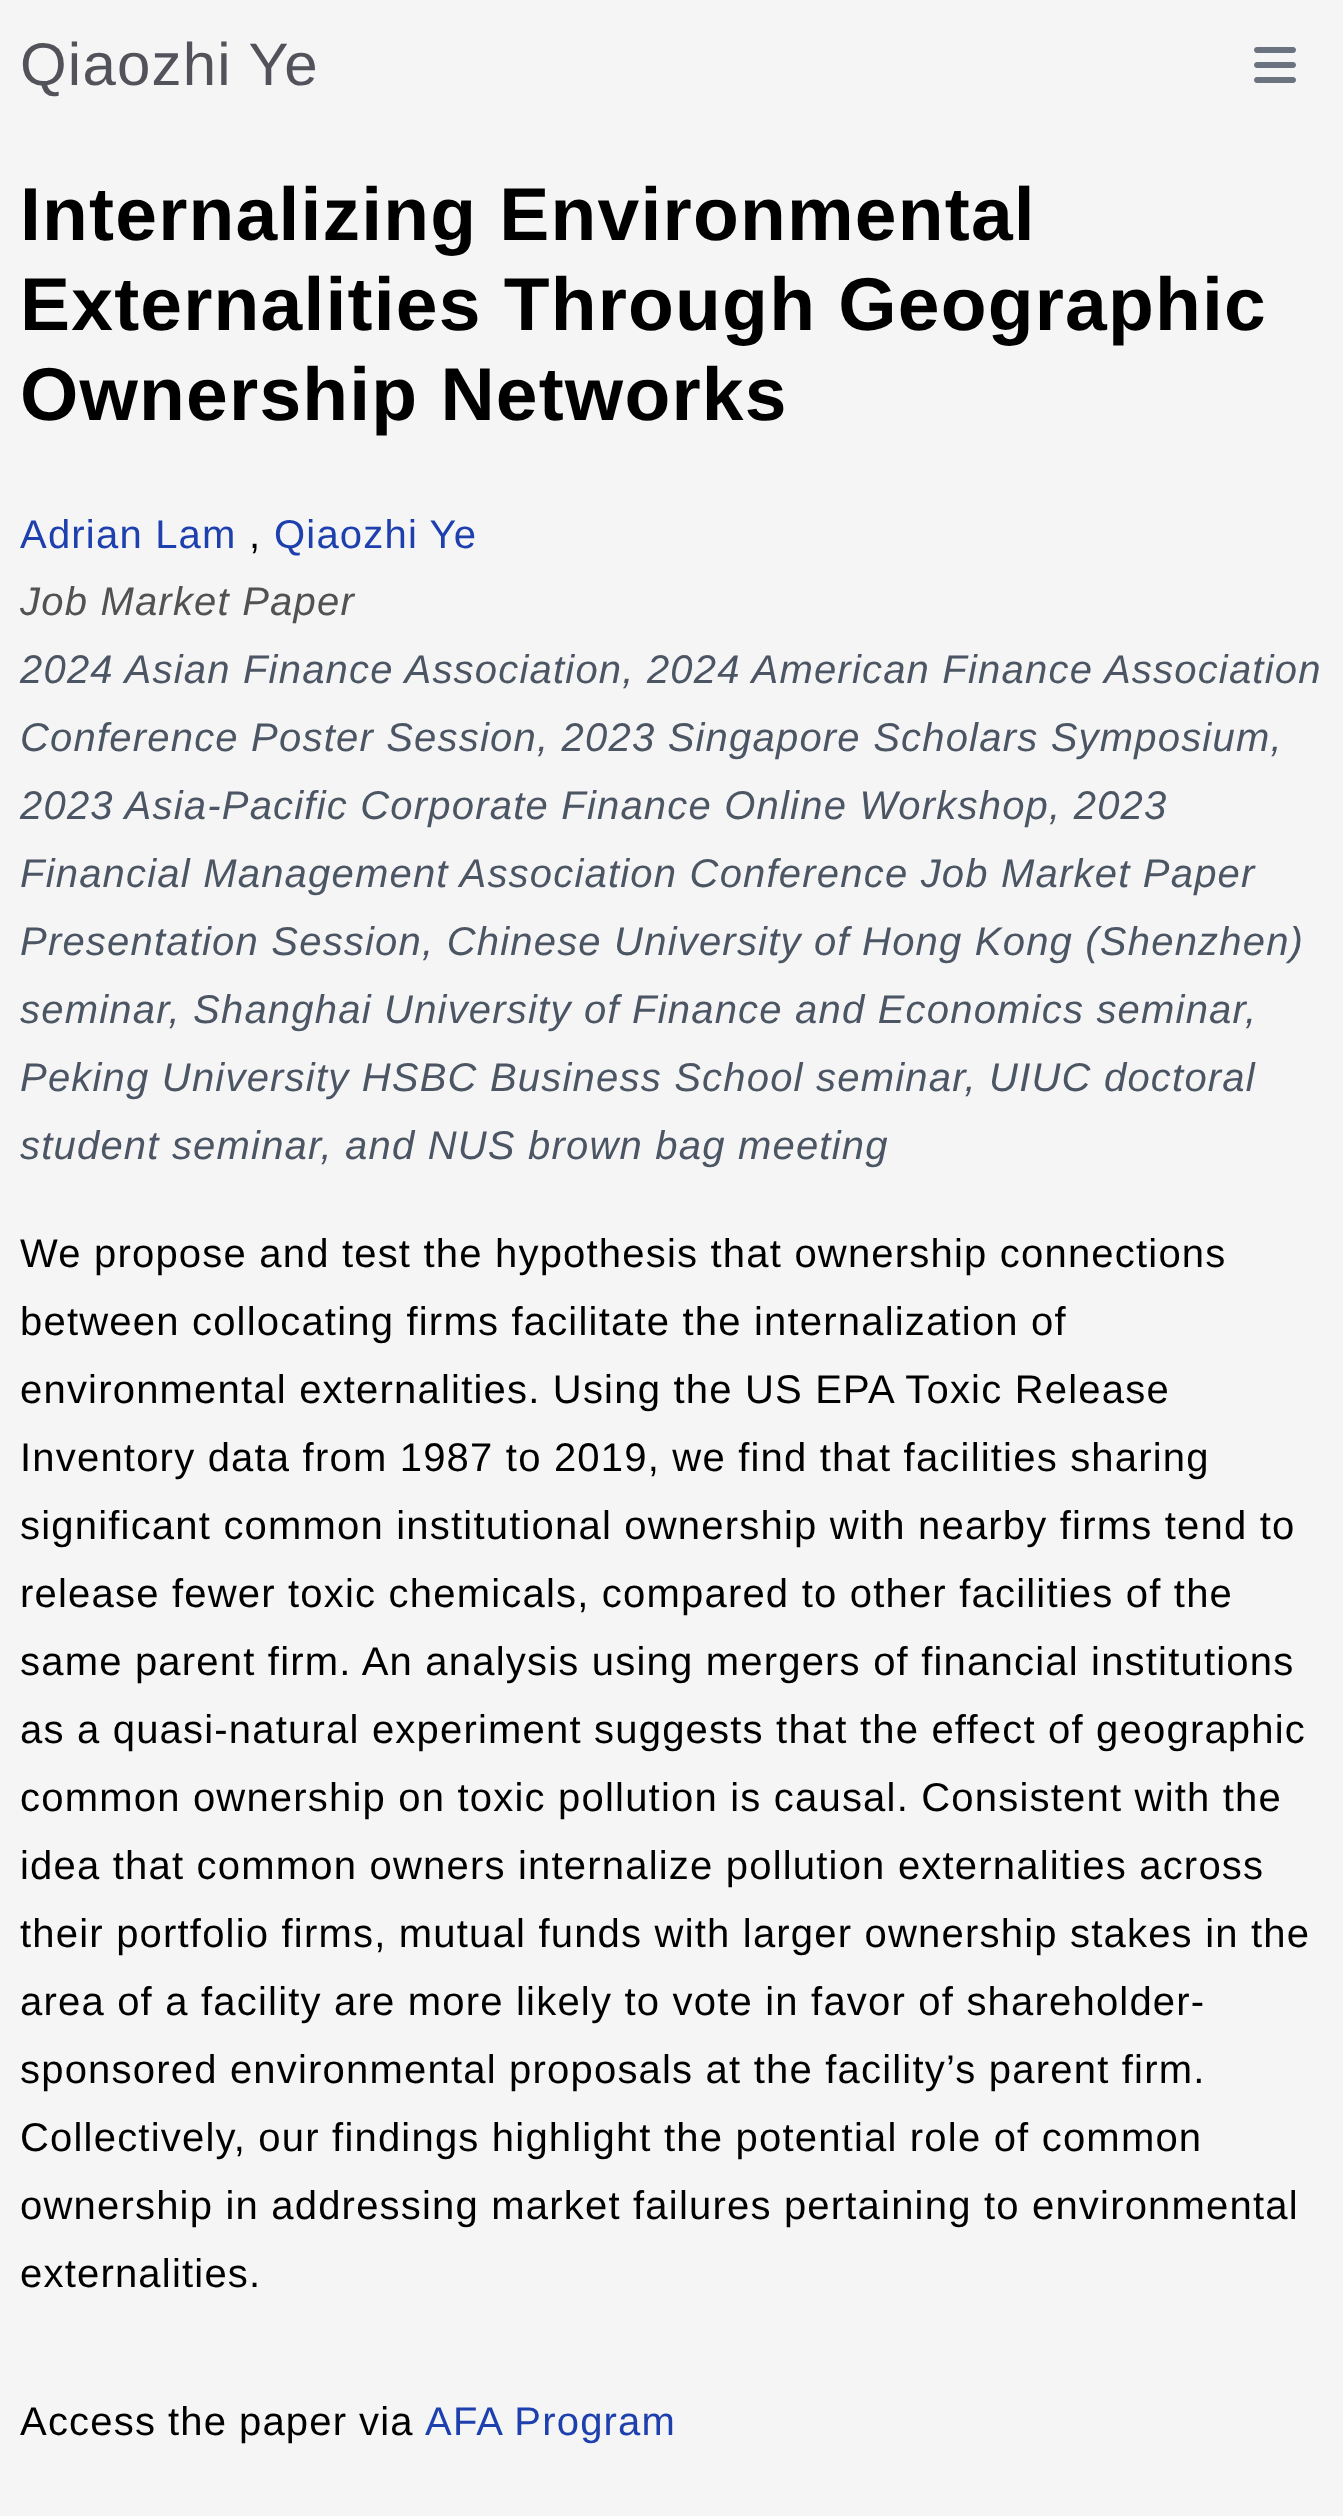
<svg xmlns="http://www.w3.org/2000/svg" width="1343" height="2516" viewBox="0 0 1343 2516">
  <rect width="100%" height="100%" fill="#f5f5f5"/>
  <text x="20" y="85" font-family="Liberation Sans" font-size="60" letter-spacing="1.2" fill="#52525b">Qiaozhi Ye</text>
  <image x="1254" y="47" width="42" height="36" href="img1.png"/>
  <text x="20" y="240" font-family="Liberation Sans" font-size="75" font-weight="bold" letter-spacing="1.2" fill="#000000">Internalizing Environmental</text>
  <text x="20" y="330" font-family="Liberation Sans" font-size="75" font-weight="bold" letter-spacing="1.2" fill="#000000">Externalities Through Geographic</text>
  <text x="20" y="420" font-family="Liberation Sans" font-size="75" font-weight="bold" letter-spacing="1.2" fill="#000000">Ownership Networks</text>
  <text x="20" y="548" font-family="Liberation Sans" font-size="40" letter-spacing="1.2" fill="#1e40af">Adrian Lam</text>
  <text x="249" y="548" font-family="Liberation Sans" font-size="40" letter-spacing="1.2" fill="#000000">,</text>
  <text x="274" y="548" font-family="Liberation Sans" font-size="40" letter-spacing="1.2" fill="#1e40af">Qiaozhi Ye</text>
  <text x="20" y="615" font-family="Liberation Sans" font-size="40" font-style="italic" letter-spacing="1.2" fill="#525252">Job Market Paper</text>
  <text x="20" y="683" font-family="Liberation Sans" font-size="40" font-style="italic" letter-spacing="1.2" fill="#4b5563">2024 Asian Finance Association, 2024 American Finance Association</text>
  <text x="20" y="751" font-family="Liberation Sans" font-size="40" font-style="italic" letter-spacing="1.2" fill="#4b5563">Conference Poster Session, 2023 Singapore Scholars Symposium,</text>
  <text x="20" y="819" font-family="Liberation Sans" font-size="40" font-style="italic" letter-spacing="1.2" fill="#4b5563">2023 Asia-Pacific Corporate Finance Online Workshop, 2023</text>
  <text x="20" y="887" font-family="Liberation Sans" font-size="40" font-style="italic" letter-spacing="1.2" fill="#4b5563">Financial Management Association Conference Job Market Paper</text>
  <text x="20" y="955" font-family="Liberation Sans" font-size="40" font-style="italic" letter-spacing="1.2" fill="#4b5563">Presentation Session, Chinese University of Hong Kong (Shenzhen)</text>
  <text x="20" y="1023" font-family="Liberation Sans" font-size="40" font-style="italic" letter-spacing="1.2" fill="#4b5563">seminar, Shanghai University of Finance and Economics seminar,</text>
  <text x="20" y="1091" font-family="Liberation Sans" font-size="40" font-style="italic" letter-spacing="1.2" fill="#4b5563">Peking University HSBC Business School seminar, UIUC doctoral</text>
  <text x="20" y="1159" font-family="Liberation Sans" font-size="40" font-style="italic" letter-spacing="1.2" fill="#4b5563">student seminar, and NUS brown bag meeting</text>
  <text x="20" y="1267" font-family="Liberation Sans" font-size="40" letter-spacing="1.2" fill="#000000">We propose and test the hypothesis that ownership connections</text>
  <text x="20" y="1335" font-family="Liberation Sans" font-size="40" letter-spacing="1.2" fill="#000000">between collocating firms facilitate the internalization of</text>
  <text x="20" y="1403" font-family="Liberation Sans" font-size="40" letter-spacing="1.2" fill="#000000">environmental externalities. Using the US EPA Toxic Release</text>
  <text x="20" y="1471" font-family="Liberation Sans" font-size="40" letter-spacing="1.2" fill="#000000">Inventory data from 1987 to 2019, we find that facilities sharing</text>
  <text x="20" y="1539" font-family="Liberation Sans" font-size="40" letter-spacing="1.2" fill="#000000">significant common institutional ownership with nearby firms tend to</text>
  <text x="20" y="1607" font-family="Liberation Sans" font-size="40" letter-spacing="1.2" fill="#000000">release fewer toxic chemicals, compared to other facilities of the</text>
  <text x="20" y="1675" font-family="Liberation Sans" font-size="40" letter-spacing="1.2" fill="#000000">same parent firm. An analysis using mergers of financial institutions</text>
  <text x="20" y="1743" font-family="Liberation Sans" font-size="40" letter-spacing="1.2" fill="#000000">as a quasi-natural experiment suggests that the effect of geographic</text>
  <text x="20" y="1811" font-family="Liberation Sans" font-size="40" letter-spacing="1.2" fill="#000000">common ownership on toxic pollution is causal. Consistent with the</text>
  <text x="20" y="1879" font-family="Liberation Sans" font-size="40" letter-spacing="1.2" fill="#000000">idea that common owners internalize pollution externalities across</text>
  <text x="20" y="1947" font-family="Liberation Sans" font-size="40" letter-spacing="1.2" fill="#000000">their portfolio firms, mutual funds with larger ownership stakes in the</text>
  <text x="20" y="2015" font-family="Liberation Sans" font-size="40" letter-spacing="1.2" fill="#000000">area of a facility are more likely to vote in favor of shareholder-</text>
  <text x="20" y="2083" font-family="Liberation Sans" font-size="40" letter-spacing="1.2" fill="#000000">sponsored environmental proposals at the facility’s parent firm.</text>
  <text x="20" y="2151" font-family="Liberation Sans" font-size="40" letter-spacing="1.2" fill="#000000">Collectively, our findings highlight the potential role of common</text>
  <text x="20" y="2219" font-family="Liberation Sans" font-size="40" letter-spacing="1.2" fill="#000000">ownership in addressing market failures pertaining to environmental</text>
  <text x="20" y="2287" font-family="Liberation Sans" font-size="40" letter-spacing="1.2" fill="#000000">externalities.</text>
  <text x="20" y="2435" word-spacing="-0.5" font-family="Liberation Sans" font-size="40" letter-spacing="1.2" fill="#000000">Access the paper via</text>
  <text x="425" y="2435" font-family="Liberation Sans" font-size="40" letter-spacing="1.2" fill="#1e40af">AFA Program</text>
</svg>
